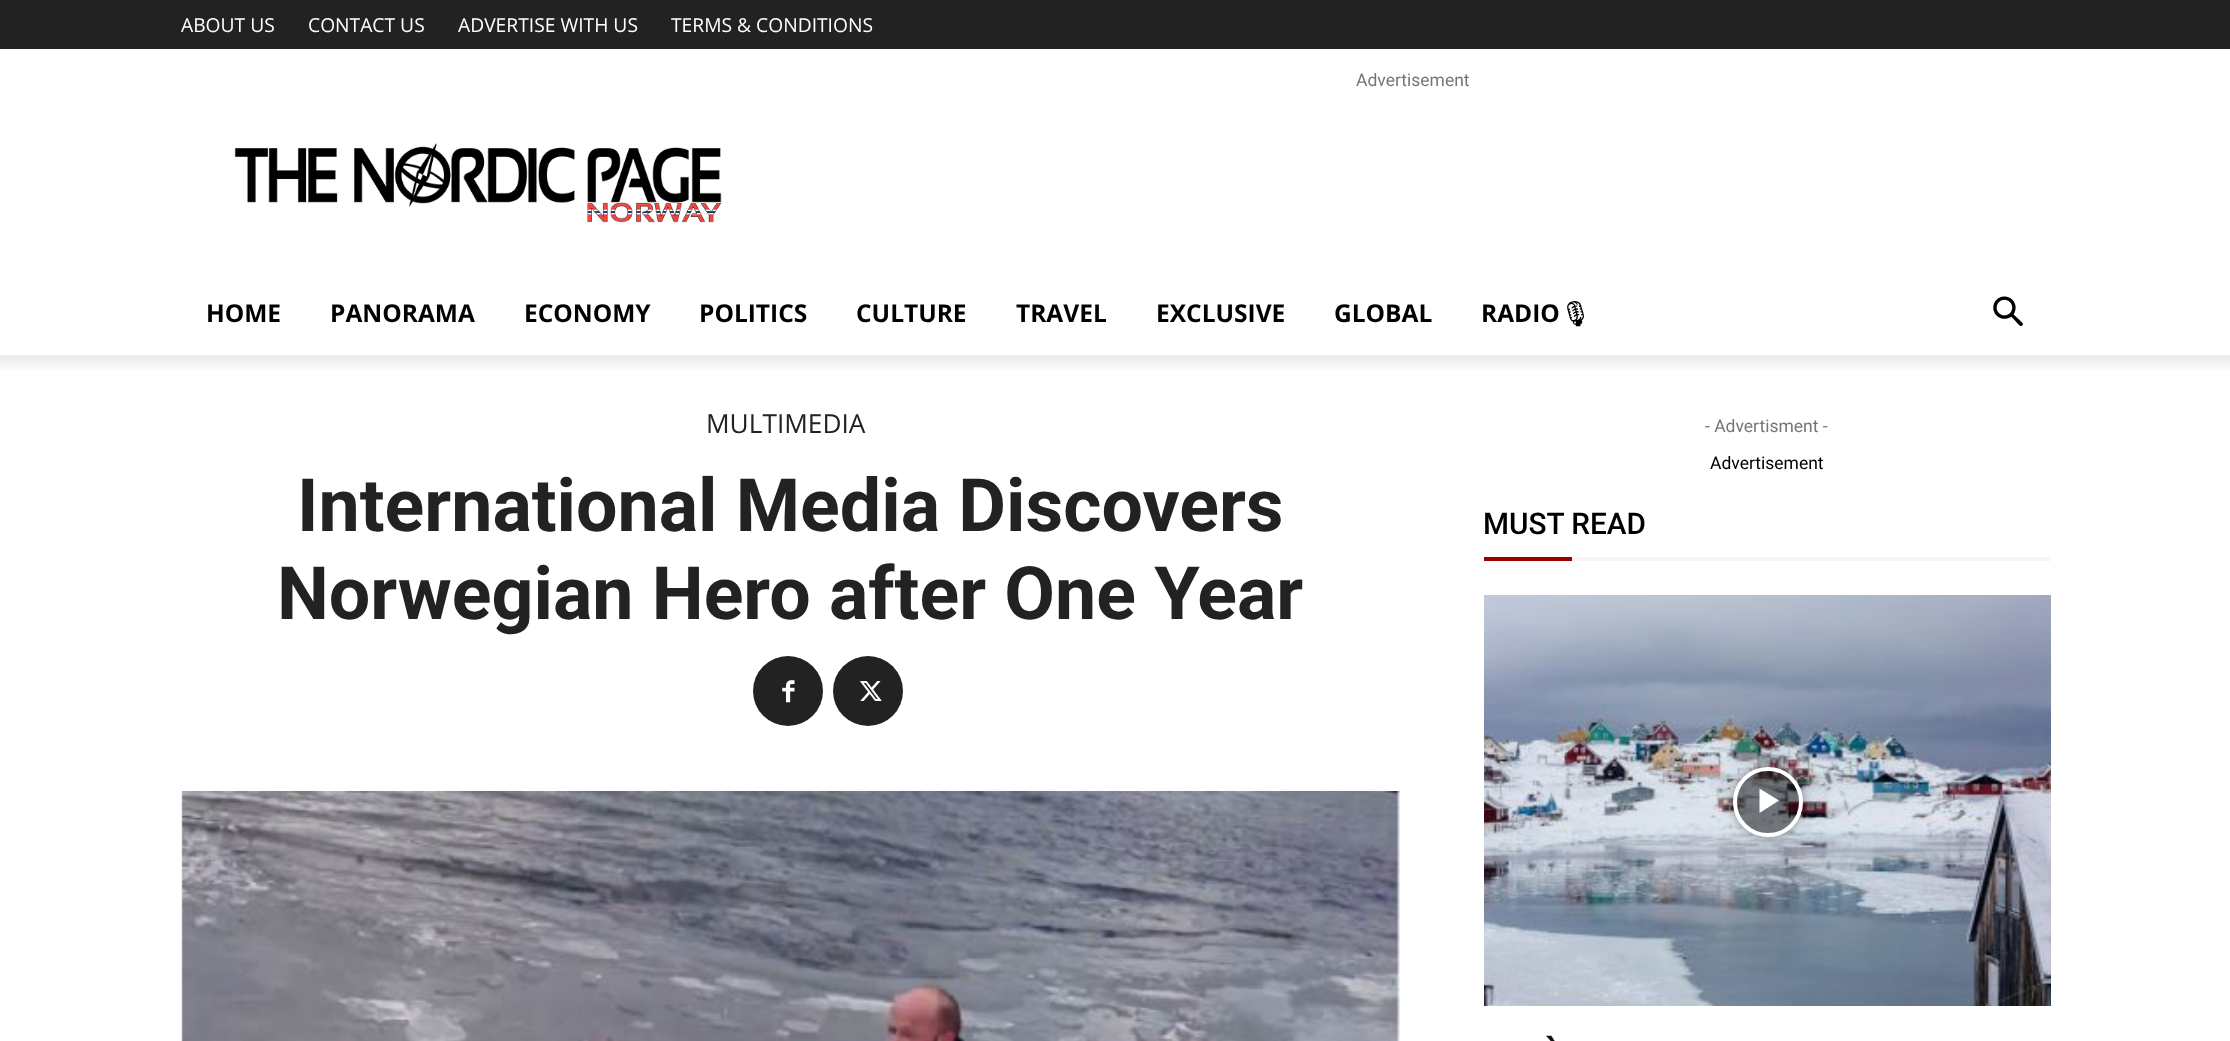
<svg xmlns="http://www.w3.org/2000/svg" width="2230" height="1041" viewBox="0 0 2230 1041">
  <defs>
    <clipPath id="clip1"><path d="M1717 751H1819V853H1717ZM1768 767C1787.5 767 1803 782.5 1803 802C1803 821.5 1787.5 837 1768 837C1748.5 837 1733 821.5 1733 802C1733 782.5 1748.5 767 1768 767Z" clip-rule="evenodd"/></clipPath>
    <filter id="blur1" x="-50%" y="-200%" width="200%" height="500%"><feGaussianBlur stdDeviation="5"/></filter>
  </defs>
  <rect width="100%" height="100%" fill="#ffffff"/>
  <rect x="0" y="0" width="2230" height="49" fill="#222222"/>
  <text x="181" y="32" font-family="Open Sans" font-size="19.25" fill="#ffffff">ABOUT US</text>
  <text x="308" y="32" font-family="Open Sans" font-size="19.25" fill="#ffffff">CONTACT US</text>
  <text x="458" y="32" font-family="Open Sans" font-size="19.25" fill="#ffffff">ADVERTISE WITH US</text>
  <text x="671" y="32" font-family="Open Sans" font-size="19.25" fill="#ffffff">TERMS &amp; CONDITIONS</text>
  <text x="1356" y="86" font-family="Roboto" font-size="17.5" fill="#767676">Advertisement</text>
  <image x="234" y="143" width="488" height="80" href="img1.png"/>
  <text x="206" y="322" font-family="Open Sans" font-size="24.5" font-weight="bold" fill="#000000">HOME</text>
  <text x="330" y="322" font-family="Open Sans" font-size="24.5" font-weight="bold" fill="#000000">PANORAMA</text>
  <text x="524" y="322" font-family="Open Sans" font-size="24.5" font-weight="bold" fill="#000000">ECONOMY</text>
  <text x="699" y="322" font-family="Open Sans" font-size="24.5" font-weight="bold" fill="#000000">POLITICS</text>
  <text x="856" y="322" font-family="Open Sans" font-size="24.5" font-weight="bold" fill="#000000">CULTURE</text>
  <text x="1016" y="322" font-family="Open Sans" font-size="24.5" font-weight="bold" fill="#000000">TRAVEL</text>
  <text x="1156" y="322" font-family="Open Sans" font-size="24.5" font-weight="bold" fill="#000000">EXCLUSIVE</text>
  <text x="1334" y="322" font-family="Open Sans" font-size="24.5" font-weight="bold" fill="#000000">GLOBAL</text>
  <text x="1481" y="322" font-family="Open Sans" font-size="24.5" font-weight="bold" fill="#000000">RADIO</text>
  <text x="1560" y="322" font-family="Noto Emoji" font-size="24.5" font-weight="bold" fill="#000000">🎙</text>
  <image x="1993" y="296" width="30" height="30" href="img2.png"/>
  <image x="0" y="355" width="2230" height="15" href="img3.png"/>
  <text x="706" y="433" font-family="Open Sans" font-size="26.25" fill="#222222">MULTIMEDIA</text>
  <text x="297" y="531" font-family="Roboto" font-size="73.5" font-weight="bold" fill="#222222">International Media Discovers</text>
  <text x="277" y="619" font-family="Roboto" font-size="73.5" font-weight="bold" fill="#222222">Norwegian Hero after One Year</text>
  <circle cx="788" cy="691" r="35" fill="#222222"/>
  <image x="782" y="680" width="13" height="23" href="img4.png"/>
  <circle cx="868" cy="691" r="35" fill="#222222"/>
  <image x="859" y="681" width="23" height="20" href="img5.png"/>
  <image x="181" y="791" width="1219" height="250" href="img6.png"/>
  <text x="1705" y="432" font-family="Roboto" font-size="17.5" fill="#767676">- Advertisment -</text>
  <text x="1710" y="469" font-family="Roboto" font-size="17.5" fill="#000000">Advertisement</text>
  <text x="1483" y="534" font-family="Roboto" font-size="29.75" font-weight="500" fill="#000000">MUST READ</text>
  <rect x="1484" y="557" width="88" height="4" fill="#990000"/>
  <rect x="1572" y="557" width="479" height="4" fill="#f5f5f5"/>
  <image x="1484" y="595" width="567" height="411" href="img7.png"/>
  <g clip-path="url(#clip1)">
    <rect x="1733" y="767" width="70" height="70" rx="35" fill="#000000" fill-opacity="0.4" filter="url(#blur1)"/>
  </g>
  <circle cx="1768" cy="802" r="33" fill="#000000" fill-opacity="0.48" stroke="#ffffff" stroke-width="4"/>
  <path d="M1759.5 788.5V813L1779 800.5Z" fill="#ffffff"/>
  <text x="1545" y="1062" font-family="Roboto" font-size="35" font-weight="bold" fill="#111111">`</text>
</svg>
